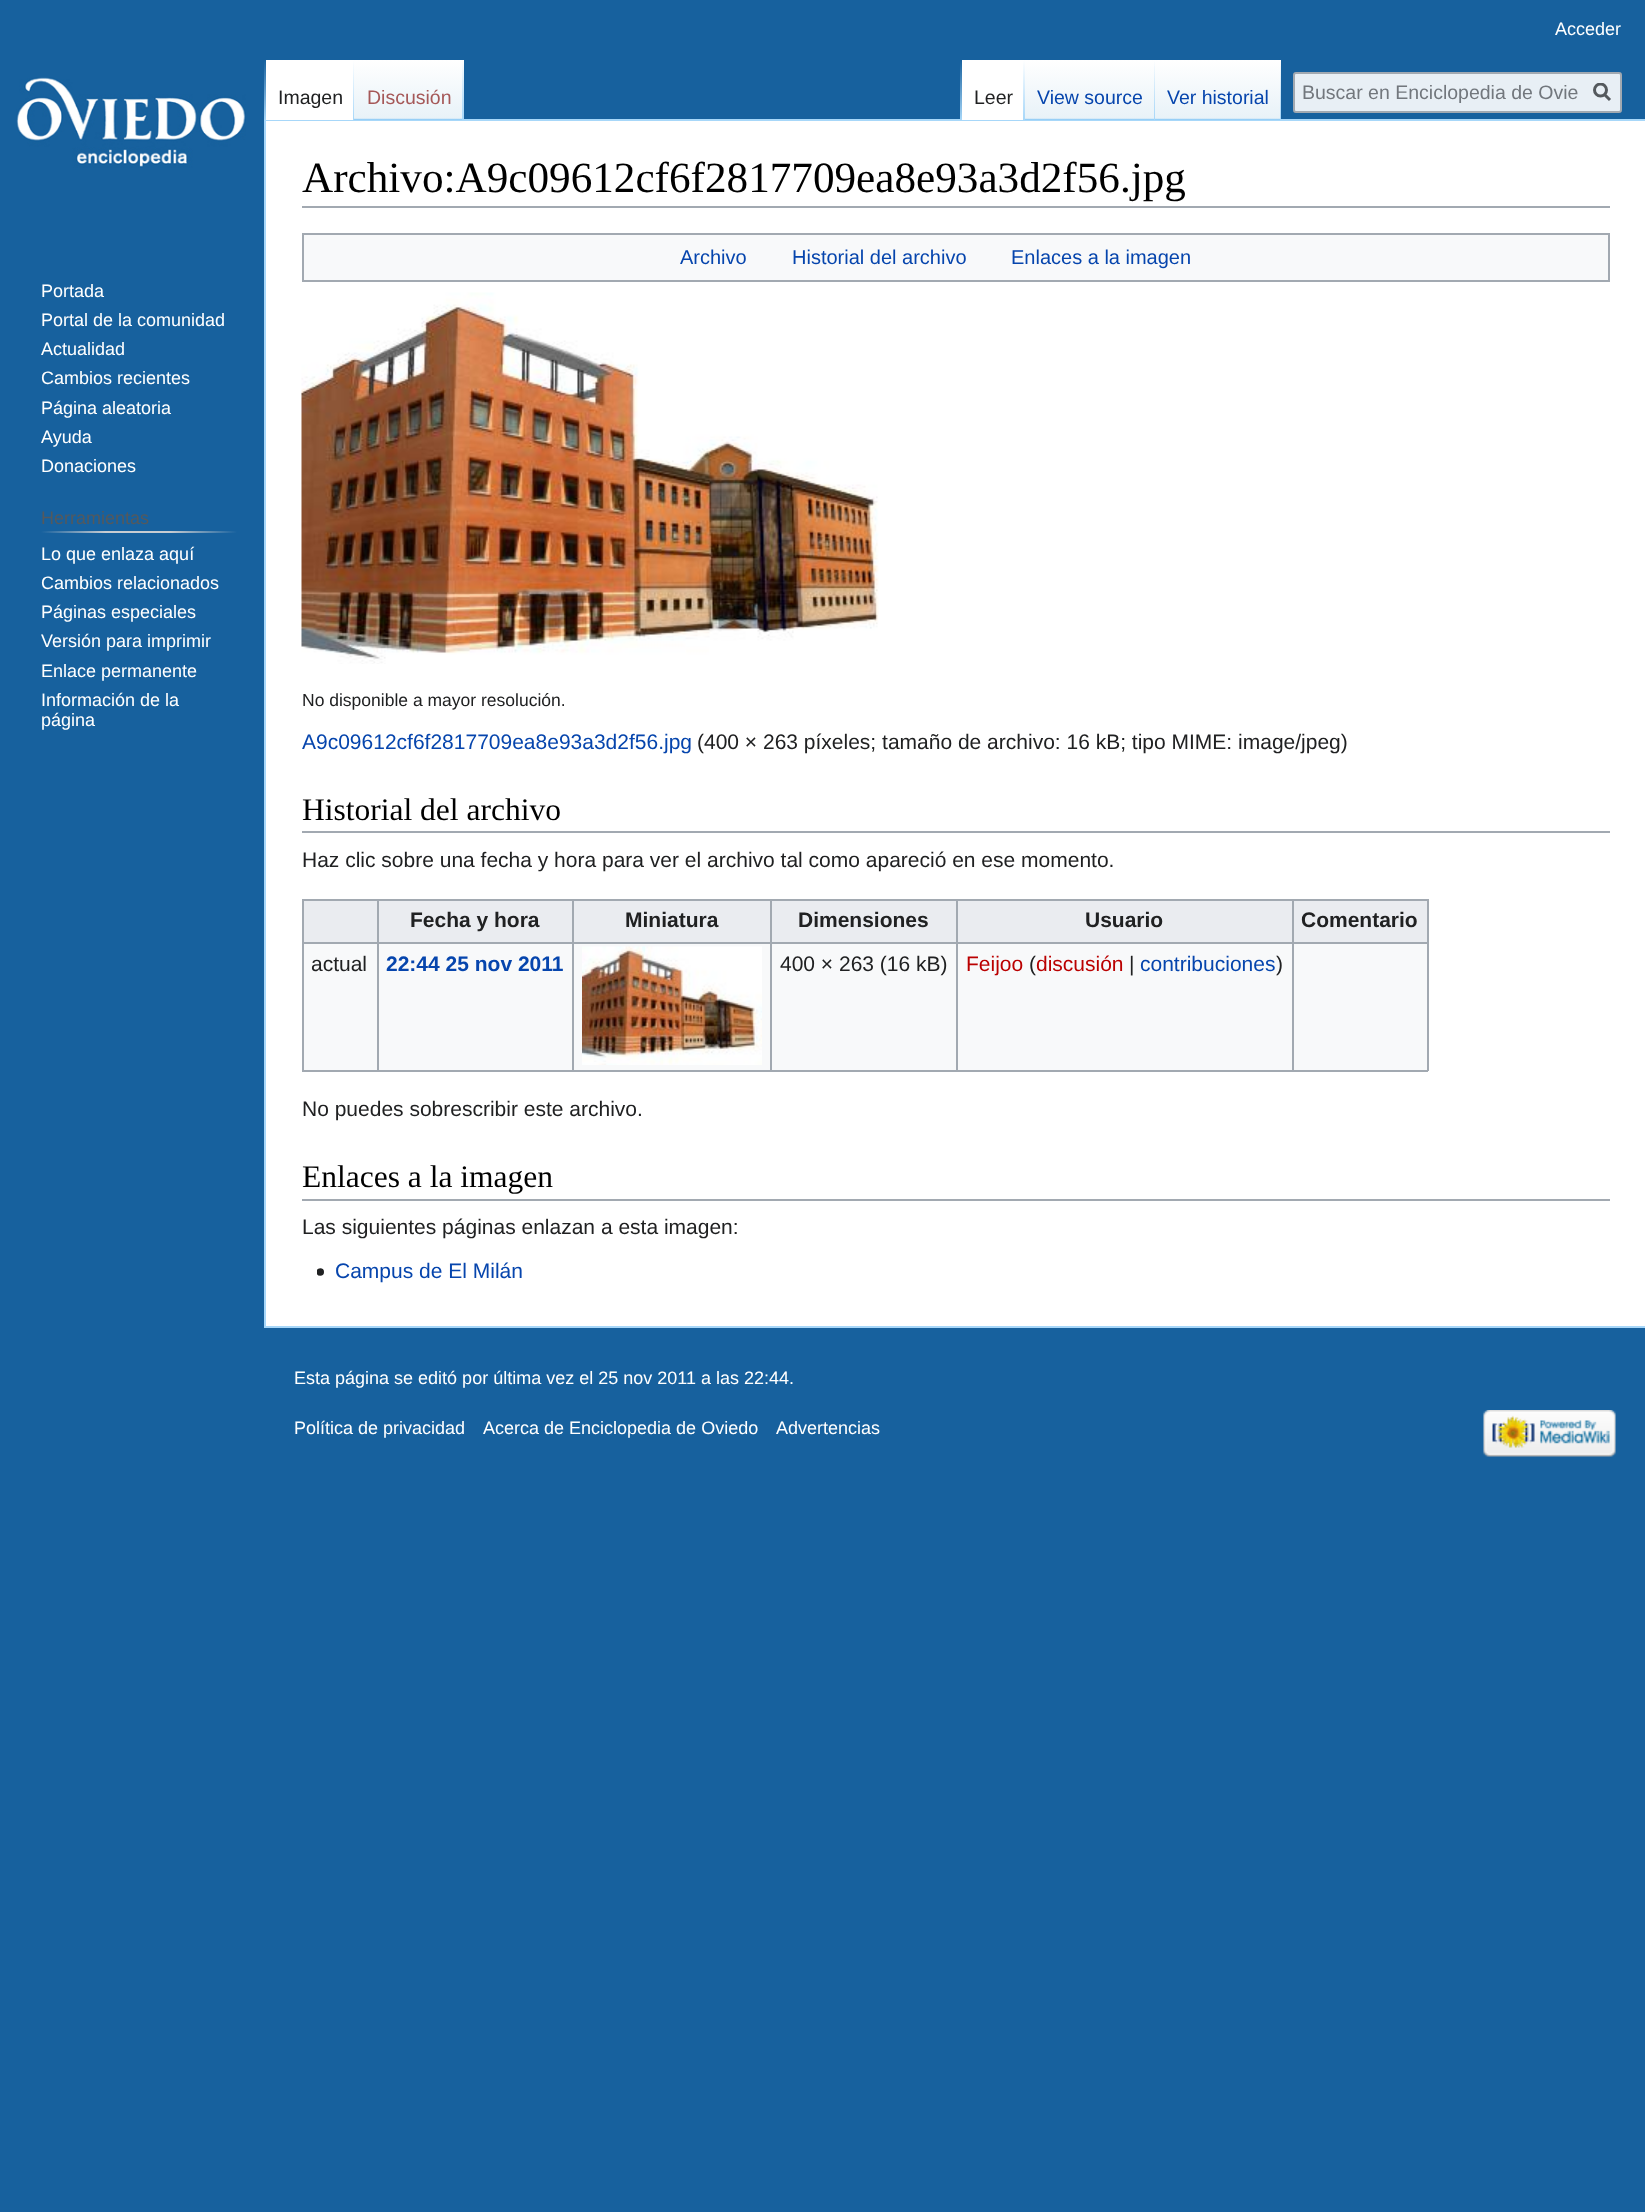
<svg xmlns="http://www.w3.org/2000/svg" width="1645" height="2212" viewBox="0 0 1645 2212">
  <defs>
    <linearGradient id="g1" gradientUnits="userSpaceOnUse" x1="265" y1="60" x2="265" y2="120"><stop offset="0" stop-color="#a7d7f9" stop-opacity="0"/><stop offset="1" stop-color="#a7d7f9"/></linearGradient>
    <linearGradient id="g2" gradientUnits="userSpaceOnUse" x1="353" y1="60" x2="353" y2="120"><stop offset="0" stop-color="#ffffff"/><stop offset="1" stop-color="#a7d7f9"/></linearGradient>
    <linearGradient id="g3" gradientUnits="userSpaceOnUse" x1="409" y1="120" x2="409" y2="60"><stop offset="0" stop-color="#77c1f6"/><stop offset="0.03" stop-color="#e8f2f8"/><stop offset="1" stop-color="#ffffff"/></linearGradient>
    <linearGradient id="g4" gradientUnits="userSpaceOnUse" x1="463" y1="60" x2="463" y2="120"><stop offset="0" stop-color="#a7d7f9" stop-opacity="0"/><stop offset="1" stop-color="#a7d7f9"/></linearGradient>
    <linearGradient id="g5" gradientUnits="userSpaceOnUse" x1="961" y1="60" x2="961" y2="120"><stop offset="0" stop-color="#a7d7f9" stop-opacity="0"/><stop offset="1" stop-color="#a7d7f9"/></linearGradient>
    <linearGradient id="g6" gradientUnits="userSpaceOnUse" x1="1024" y1="60" x2="1024" y2="120"><stop offset="0" stop-color="#ffffff"/><stop offset="1" stop-color="#a7d7f9"/></linearGradient>
    <linearGradient id="g7" gradientUnits="userSpaceOnUse" x1="1090" y1="120" x2="1090" y2="60"><stop offset="0" stop-color="#77c1f6"/><stop offset="0.03" stop-color="#e8f2f8"/><stop offset="1" stop-color="#ffffff"/></linearGradient>
    <linearGradient id="g8" gradientUnits="userSpaceOnUse" x1="1154" y1="60" x2="1154" y2="120"><stop offset="0" stop-color="#a7d7f9" stop-opacity="0"/><stop offset="1" stop-color="#a7d7f9"/></linearGradient>
    <linearGradient id="g9" gradientUnits="userSpaceOnUse" x1="1218" y1="120" x2="1218" y2="60"><stop offset="0" stop-color="#77c1f6"/><stop offset="0.03" stop-color="#e8f2f8"/><stop offset="1" stop-color="#ffffff"/></linearGradient>
    <linearGradient id="g10" gradientUnits="userSpaceOnUse" x1="1280" y1="60" x2="1280" y2="120"><stop offset="0" stop-color="#a7d7f9" stop-opacity="0"/><stop offset="1" stop-color="#a7d7f9"/></linearGradient>
    <clipPath id="clip1"><rect x="1593" y="83" width="18" height="19"/></clipPath>
    <linearGradient id="g11" gradientUnits="userSpaceOnUse" x1="41" y1="532" x2="237" y2="532"><stop offset="0" stop-color="#17619e"/><stop offset="0.33" stop-color="#c8ccd1"/><stop offset="0.66" stop-color="#c8ccd1"/><stop offset="1" stop-color="#17619e"/></linearGradient>
  </defs>
  <rect width="100%" height="100%" fill="#17619e"/>
  <text x="1555" y="35" font-family="Liberation Sans" font-size="18" fill="#ffffff">Acceder</text>
  <rect x="264" y="119" width="1381" height="2" fill="#a7d7f9"/>
  <rect x="264" y="1326" width="1381" height="2" fill="#a7d7f9"/>
  <rect x="264" y="119" width="2" height="1209" fill="#a7d7f9"/>
  <rect x="264" y="60" width="2" height="60" fill="url(#g1)"/>
  <rect x="266" y="60" width="87" height="60" fill="#ffffff"/>
  <rect x="353" y="60" width="1" height="60" fill="url(#g2)"/>
  <text x="278" y="104" font-family="Liberation Sans" font-size="19.5" fill="#202122">Imagen</text>
  <rect x="354" y="60" width="110" height="60" fill="url(#g3)"/>
  <rect x="462" y="60" width="2" height="60" fill="url(#g4)"/>
  <text x="367" y="104" font-family="Liberation Sans" font-size="19.5" fill="#a55858">Discusión</text>
  <rect x="960" y="60" width="2" height="60" fill="url(#g5)"/>
  <rect x="962" y="60" width="61" height="60" fill="#ffffff"/>
  <rect x="1023" y="60" width="2" height="60" fill="url(#g6)"/>
  <text x="974" y="104" font-family="Liberation Sans" font-size="19.5" fill="#202122">Leer</text>
  <rect x="1025" y="60" width="130" height="60" fill="url(#g7)"/>
  <rect x="1154" y="60" width="1" height="60" fill="url(#g8)"/>
  <text x="1037" y="104" font-family="Liberation Sans" font-size="19.5" fill="#0645ad">View source</text>
  <rect x="1155" y="60" width="126" height="60" fill="url(#g9)"/>
  <rect x="1280" y="60" width="1" height="60" fill="url(#g10)"/>
  <text x="1167" y="104" font-family="Liberation Sans" font-size="19.5" fill="#0645ad">Ver historial</text>
  <rect x="1294" y="73" width="327" height="39" rx="2" fill="#e8eff5" stroke="#a2a9b1" stroke-width="2"/>
  <text x="1302" y="99" font-family="Liberation Sans" font-size="19.5" fill="#72777d">Buscar en Enciclopedia de Ovie</text>
  <path d="M1610 100L1604 94" fill="none" stroke="#54595d" stroke-width="3"/>
  <g clip-path="url(#clip1)">
    <circle cx="1600.5" cy="90" r="6" fill="none" stroke="#54595d" stroke-width="3"/>
  </g>
  <image x="16" y="77" width="230" height="91" href="img1.png"/>
  <text x="41" y="297" font-family="Liberation Sans" font-size="18" fill="#ffffff">Portada</text>
  <text x="41" y="326" font-family="Liberation Sans" font-size="18" fill="#ffffff">Portal de la comunidad</text>
  <text x="41" y="355" font-family="Liberation Sans" font-size="18" fill="#ffffff">Actualidad</text>
  <text x="41" y="384" font-family="Liberation Sans" font-size="18" fill="#ffffff">Cambios recientes</text>
  <text x="41" y="414" font-family="Liberation Sans" font-size="18" fill="#ffffff">Página aleatoria</text>
  <text x="41" y="443" font-family="Liberation Sans" font-size="18" fill="#ffffff">Ayuda</text>
  <text x="41" y="472" font-family="Liberation Sans" font-size="18" fill="#ffffff">Donaciones</text>
  <rect x="41" y="531" width="196" height="2" fill="url(#g11)"/>
  <text x="41" y="524" font-family="Liberation Sans" font-size="18" fill="#54595d">Herramientas</text>
  <text x="41" y="560" font-family="Liberation Sans" font-size="18" fill="#ffffff">Lo que enlaza aquí</text>
  <text x="41" y="589" font-family="Liberation Sans" font-size="18" fill="#ffffff">Cambios relacionados</text>
  <text x="41" y="618" font-family="Liberation Sans" font-size="18" fill="#ffffff">Páginas especiales</text>
  <text x="41" y="647" font-family="Liberation Sans" font-size="18" fill="#ffffff">Versión para imprimir</text>
  <text x="41" y="677" font-family="Liberation Sans" font-size="18" fill="#ffffff">Enlace permanente</text>
  <text x="41" y="706" font-family="Liberation Sans" font-size="18" fill="#ffffff">Información de la</text>
  <text x="41" y="726" font-family="Liberation Sans" font-size="18" fill="#ffffff">página</text>
  <rect x="266" y="121" width="1379" height="1205" fill="#ffffff"/>
  <rect x="302" y="206" width="1308" height="2" fill="#a2a9b1"/>
  <text x="302" y="192" font-family="Liberation Serif" font-size="43.2" fill="#000000">Archivo:A9c09612cf6f2817709ea8e93a3d2f56.jpg</text>
  <rect x="303" y="234" width="1306" height="47" fill="#f8f9fa" stroke="#a2a9b1" stroke-width="2"/>
  <text x="680" y="264" font-family="Liberation Sans" font-size="20" fill="#0645ad">Archivo</text>
  <text x="792" y="264" font-family="Liberation Sans" font-size="20" fill="#0645ad">Historial del archivo</text>
  <text x="1011" y="264" font-family="Liberation Sans" font-size="20" fill="#0645ad">Enlaces a la imagen</text>
  <image x="301" y="292" width="578" height="372" href="img2.png"/>
  <text x="302" y="706" font-family="Liberation Sans" font-size="17.5" fill="#202122">No disponible a mayor resolución.</text>
  <text x="302" y="749" font-family="Liberation Sans" font-size="21" fill="#0645ad">A9c09612cf6f2817709ea8e93a3d2f56.jpg</text>
  <text x="697" y="749" font-family="Liberation Sans" font-size="21" fill="#202122">(400 × 263 píxeles; tamaño de archivo: 16 kB; tipo MIME: image/jpeg)</text>
  <rect x="302" y="831" width="1308" height="2" fill="#a2a9b1"/>
  <text x="302" y="820" font-family="Liberation Serif" font-size="31.5" fill="#000000">Historial del archivo</text>
  <text x="302" y="867" font-family="Liberation Sans" font-size="21" fill="#202122">Haz clic sobre una fecha y hora para ver el archivo tal como apareció en ese momento.</text>
  <rect x="304" y="944" width="1123" height="126" fill="#f8f9fa"/>
  <rect x="302" y="899" width="1126" height="2" fill="#a2a9b1"/>
  <rect x="1427" y="899" width="2" height="172" fill="#a2a9b1"/>
  <rect x="302" y="1070" width="1126" height="2" fill="#a2a9b1"/>
  <rect x="302" y="899" width="2" height="172" fill="#a2a9b1"/>
  <rect x="304" y="901" width="73" height="41" fill="#eaecf0"/>
  <rect x="379" y="901" width="193" height="41" fill="#eaecf0"/>
  <rect x="1292" y="942" width="136" height="2" fill="#a2a9b1"/>
  <rect x="1292" y="942" width="2" height="129" fill="#a2a9b1"/>
  <rect x="956" y="942" width="337" height="2" fill="#a2a9b1"/>
  <rect x="956" y="942" width="2" height="129" fill="#a2a9b1"/>
  <rect x="770" y="942" width="187" height="2" fill="#a2a9b1"/>
  <rect x="770" y="942" width="2" height="129" fill="#a2a9b1"/>
  <rect x="572" y="942" width="199" height="2" fill="#a2a9b1"/>
  <rect x="572" y="942" width="2" height="129" fill="#a2a9b1"/>
  <rect x="377" y="942" width="196" height="2" fill="#a2a9b1"/>
  <rect x="377" y="942" width="2" height="129" fill="#a2a9b1"/>
  <rect x="302" y="942" width="76" height="2" fill="#a2a9b1"/>
  <rect x="377" y="899" width="2" height="45" fill="#a2a9b1"/>
  <text x="410" y="927" font-family="Liberation Sans" font-size="21" font-weight="bold" fill="#202122">Fecha y hora</text>
  <rect x="574" y="901" width="196" height="41" fill="#eaecf0"/>
  <rect x="572" y="899" width="2" height="45" fill="#a2a9b1"/>
  <text x="625" y="927" font-family="Liberation Sans" font-size="21" font-weight="bold" fill="#202122">Miniatura</text>
  <rect x="772" y="901" width="184" height="41" fill="#eaecf0"/>
  <rect x="770" y="899" width="2" height="45" fill="#a2a9b1"/>
  <text x="798" y="927" font-family="Liberation Sans" font-size="21" font-weight="bold" fill="#202122">Dimensiones</text>
  <rect x="958" y="901" width="334" height="41" fill="#eaecf0"/>
  <rect x="956" y="899" width="2" height="45" fill="#a2a9b1"/>
  <text x="1085" y="927" font-family="Liberation Sans" font-size="21" font-weight="bold" fill="#202122">Usuario</text>
  <rect x="1294" y="901" width="133" height="41" fill="#eaecf0"/>
  <rect x="1292" y="899" width="2" height="45" fill="#a2a9b1"/>
  <text x="1301" y="927" font-family="Liberation Sans" font-size="21" font-weight="bold" fill="#202122">Comentario</text>
  <text x="311" y="971" font-family="Liberation Sans" font-size="21" fill="#202122">actual</text>
  <text x="386" y="971" font-family="Liberation Sans" font-size="21" font-weight="bold" fill="#0645ad">22:44 25 nov 2011</text>
  <image x="582" y="946" width="180" height="119" href="img3.png"/>
  <text x="780" y="971" font-family="Liberation Sans" font-size="21" fill="#202122">400 × 263 (16 kB)</text>
  <text x="966" y="971" font-family="Liberation Sans" font-size="21" fill="#ba0000">Feijoo</text>
  <text x="1029" y="971" font-family="Liberation Sans" font-size="21" fill="#202122">(</text>
  <text x="1036" y="971" font-family="Liberation Sans" font-size="21" fill="#ba0000">discusión</text>
  <text x="1129" y="971" font-family="Liberation Sans" font-size="21" fill="#202122">|</text>
  <text x="1140" y="971" font-family="Liberation Sans" font-size="21" fill="#0645ad">contribuciones</text>
  <text x="1276" y="971" font-family="Liberation Sans" font-size="21" fill="#202122">)</text>
  <text x="302" y="1116" font-family="Liberation Sans" font-size="21" fill="#202122">No puedes sobrescribir este archivo.</text>
  <rect x="302" y="1199" width="1308" height="2" fill="#a2a9b1"/>
  <text x="302" y="1187" font-family="Liberation Serif" font-size="31.5" fill="#000000">Enlaces a la imagen</text>
  <text x="302" y="1234" font-family="Liberation Sans" font-size="21" fill="#202122">Las siguientes páginas enlazan a esta imagen:</text>
  <image x="317" y="1268" width="7" height="8" href="img4.png"/>
  <text x="335" y="1278" font-family="Liberation Sans" font-size="21" fill="#0645ad">Campus de El Milán</text>
  <text x="294" y="1384" font-family="Liberation Sans" font-size="18" fill="#ffffff">Esta página se editó por última vez el 25 nov 2011 a las 22:44.</text>
  <text x="294" y="1434" font-family="Liberation Sans" font-size="18" fill="#ffffff">Política de privacidad</text>
  <text x="483" y="1434" font-family="Liberation Sans" font-size="18" fill="#ffffff">Acerca de Enciclopedia de Oviedo</text>
  <text x="776" y="1434" font-family="Liberation Sans" font-size="18" fill="#ffffff">Advertencias</text>
  <image x="1483" y="1410" width="133" height="47" href="img5.png"/>
</svg>
